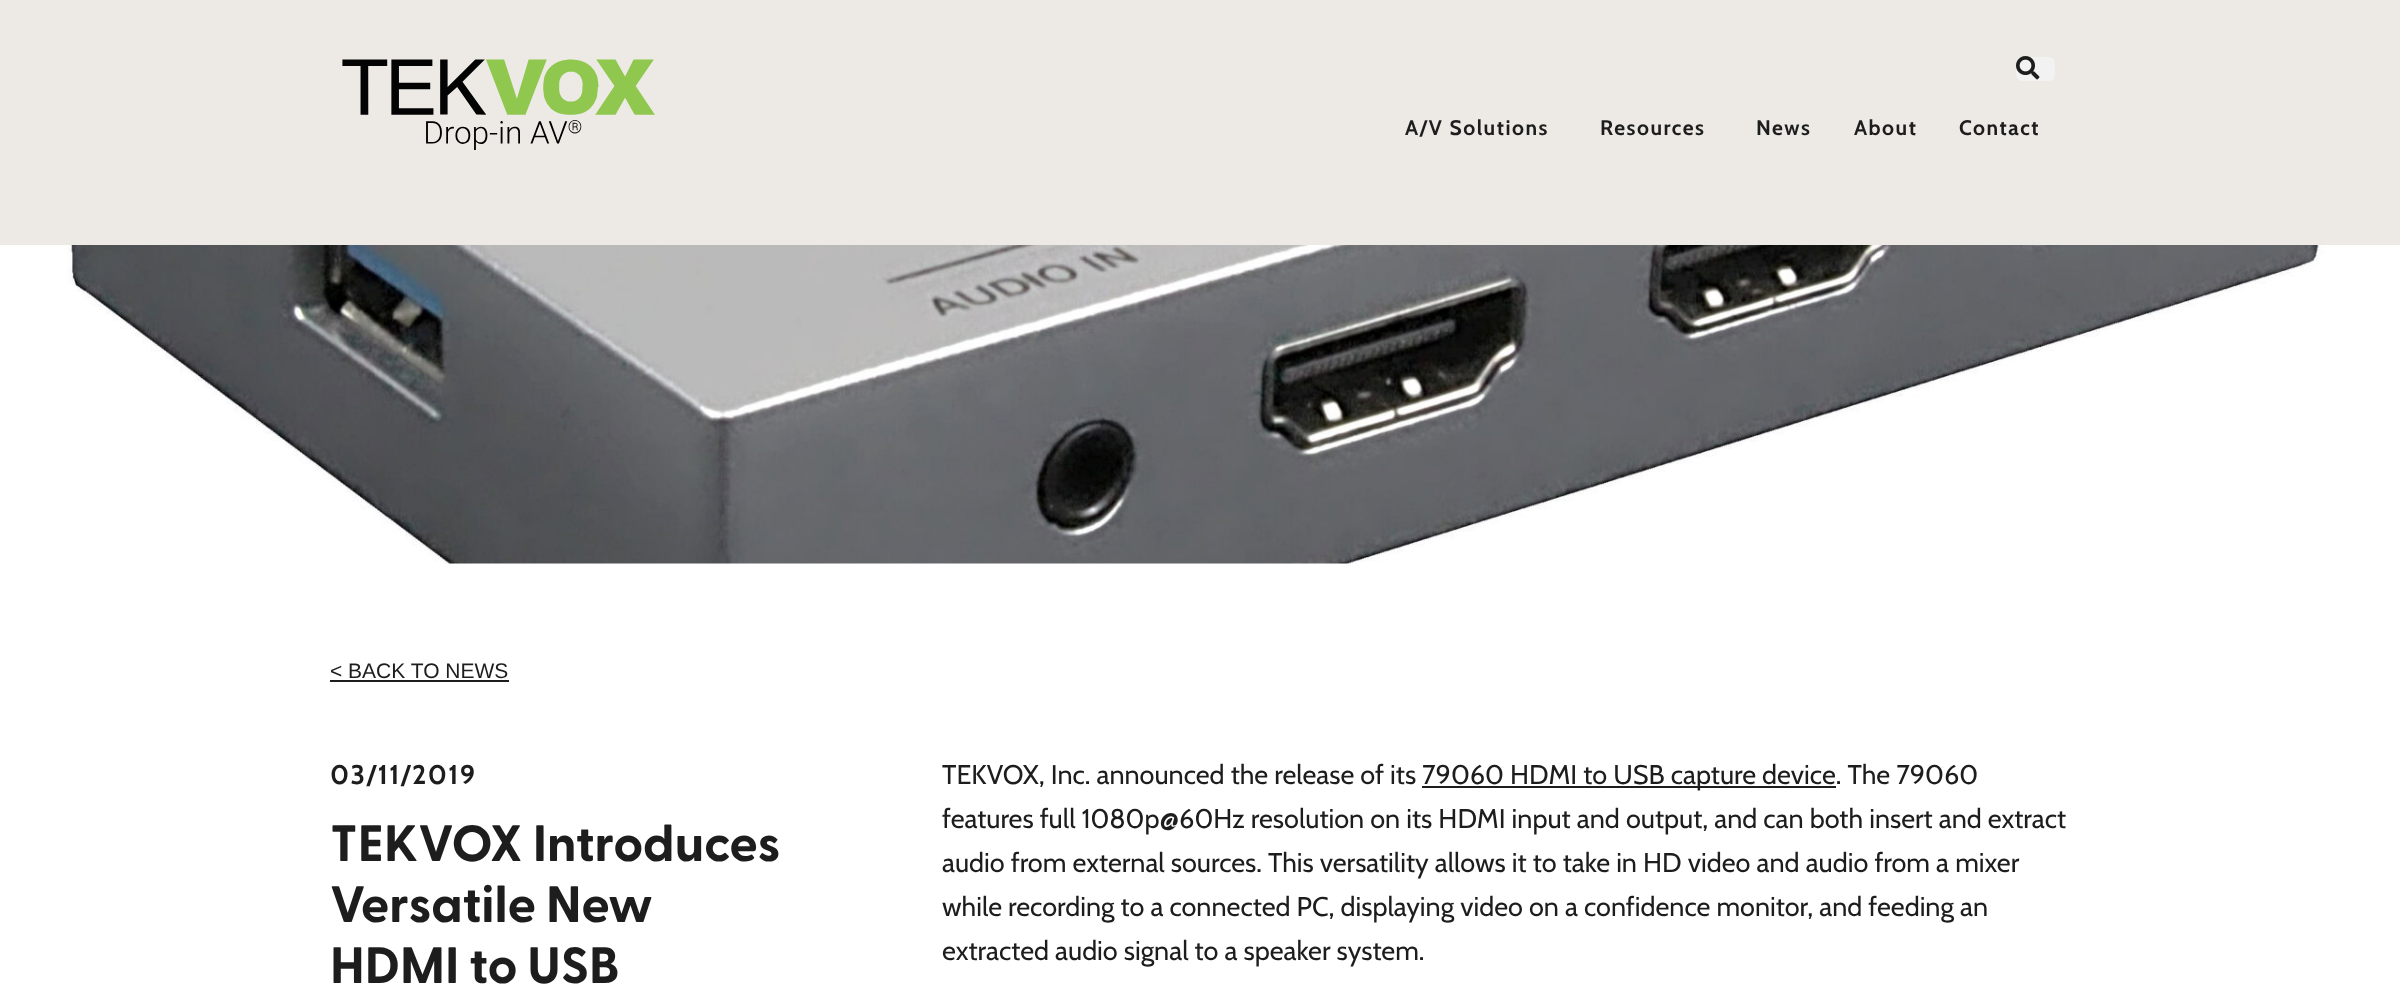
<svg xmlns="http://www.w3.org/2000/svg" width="2400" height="984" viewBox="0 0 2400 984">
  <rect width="100%" height="100%" fill="#ffffff"/>
  <rect x="0" y="0" width="2400" height="245" fill="#edeae5"/>
  <image x="342" y="59" width="313" height="91" href="img1.png"/>
  <rect x="2016" y="57" width="39" height="24" rx="6" fill="#f2f2f2"/>
  <image x="2016" y="56" width="24" height="24" href="img2.png"/>
  <text x="1405" y="135" font-family="Cabin" font-size="21" font-weight="bold" letter-spacing="1.5" fill="#1d1d1d">A/V Solutions</text>
  <text x="1600" y="135" font-family="Cabin" font-size="21" font-weight="bold" letter-spacing="1.5" fill="#1d1d1d">Resources</text>
  <text x="1756" y="135" font-family="Cabin" font-size="21" font-weight="bold" letter-spacing="1.5" fill="#1d1d1d">News</text>
  <text x="1854" y="135" font-family="Cabin" font-size="21" font-weight="bold" letter-spacing="1.5" fill="#1d1d1d">About</text>
  <text x="1959" y="135" font-family="Cabin" font-size="21" font-weight="bold" letter-spacing="1.5" fill="#1d1d1d">Contact</text>
  <image x="60" y="245" width="2287" height="319" href="img3.png"/>
  <text x="330" y="678" font-family="Liberation Sans" font-size="21" fill="#1d1d1d">&lt; BACK TO NEWS</text>
  <rect x="330" y="680" width="179" height="2" fill="#1d1d1d"/>
  <text x="330" y="784" font-family="Cabin" font-size="27" font-weight="bold" letter-spacing="1.5" fill="#1d1d1d">03/11/2019</text>
  <text x="330" y="861" font-family="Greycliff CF" font-size="51" font-weight="bold" fill="#1d1d1d">TEKVOX Introduces</text>
  <text x="330" y="922" font-family="Greycliff CF" font-size="51" font-weight="bold" fill="#1d1d1d">Versatile New</text>
  <text x="330" y="983" font-family="Greycliff CF" font-size="51" font-weight="bold" fill="#1d1d1d">HDMI to USB</text>
  <text x="942" y="784" font-family="Cabin" font-size="27" fill="#1d1d1d">TEKVOX, Inc. announced the release of its</text>
  <rect x="1422" y="786" width="414" height="2" fill="#1d1d1d"/>
  <text x="1422" y="784" font-family="Cabin" font-size="27" fill="#1d1d1d">79060 HDMI to USB capture device. The 79060</text>
  <text x="942" y="828" font-family="Cabin" font-size="27" fill="#1d1d1d">features full 1080p@60Hz resolution on its HDMI input and output, and can both insert and extract</text>
  <text x="942" y="872" font-family="Cabin" font-size="27" fill="#1d1d1d">audio from external sources. This versatility allows it to take in HD video and audio from a mixer</text>
  <text x="942" y="916" font-family="Cabin" font-size="27" fill="#1d1d1d">while recording to a connected PC, displaying video on a confidence monitor, and feeding an</text>
  <text x="942" y="960" font-family="Cabin" font-size="27" fill="#1d1d1d">extracted audio signal to a speaker system.</text>
</svg>
